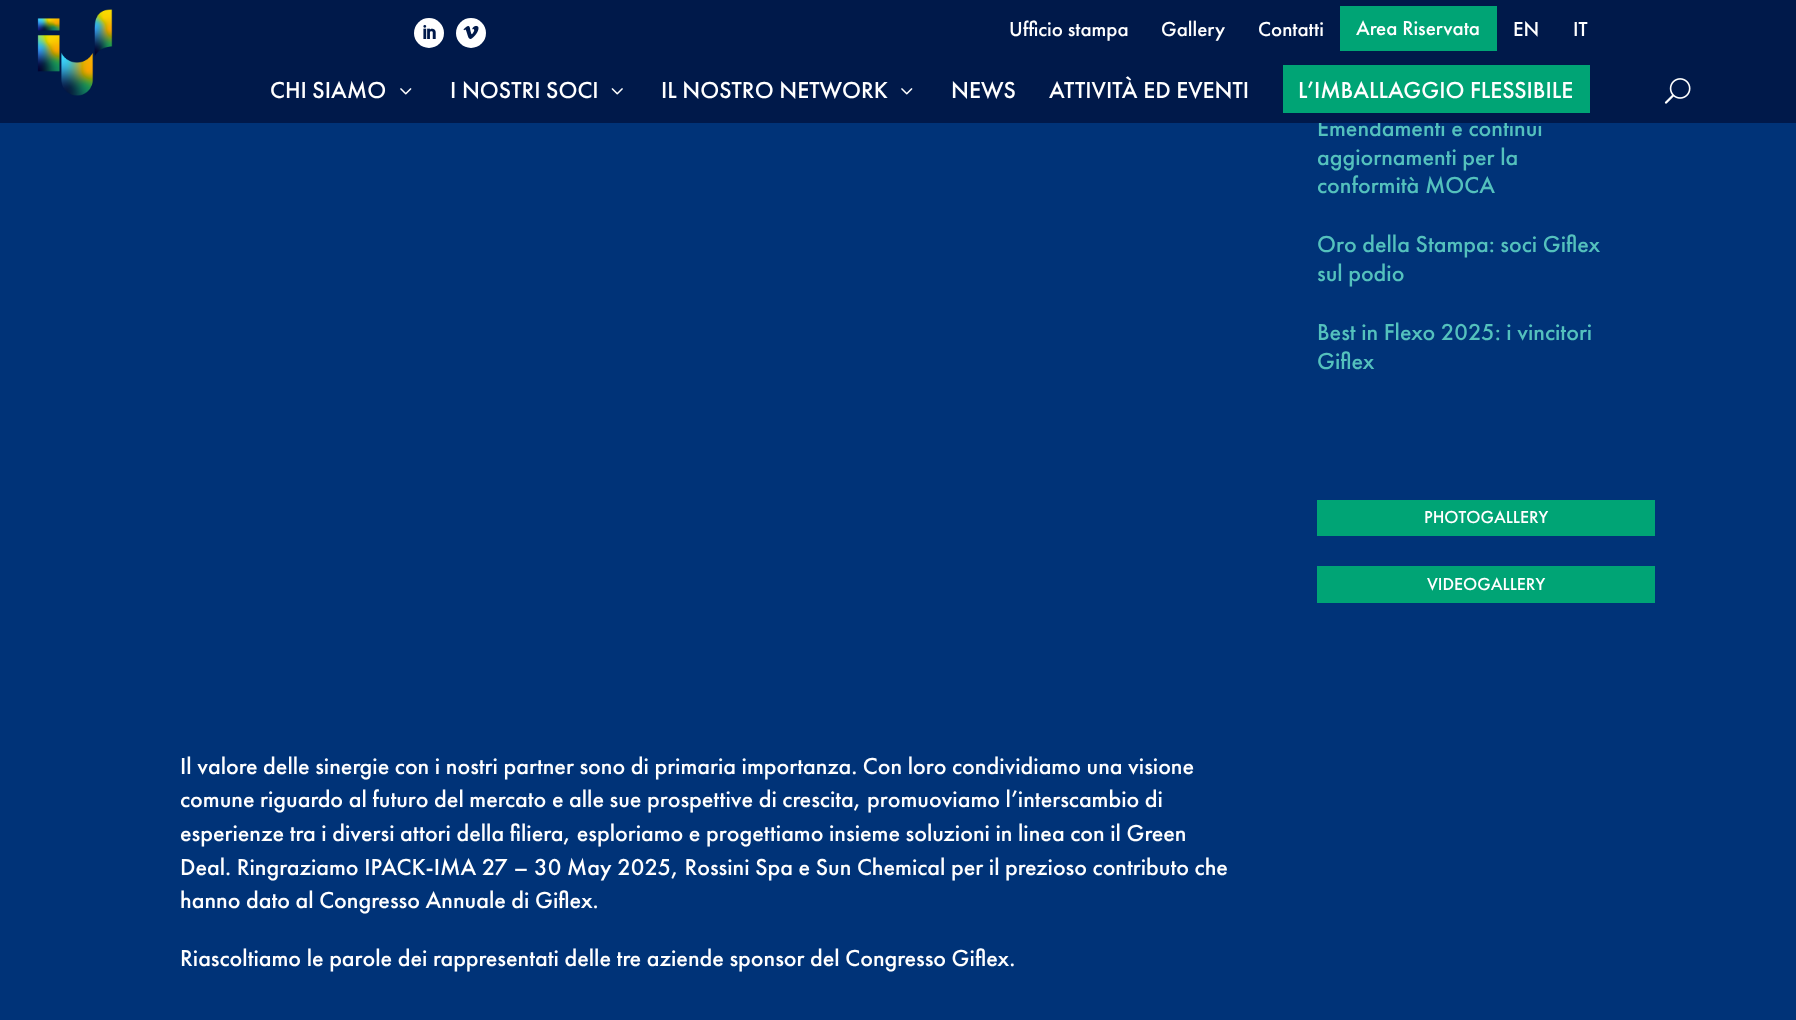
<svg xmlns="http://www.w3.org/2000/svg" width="1796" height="1020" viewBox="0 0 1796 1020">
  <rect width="100%" height="100%" fill="#003378"/>
  <text x="1317" y="136" font-family="Futura PT" font-size="24" font-weight="500" fill="#54c1bd">Emendamenti e continui</text>
  <rect x="0" y="0" width="1796" height="123" fill="#00194a"/>
  <image x="37" y="9" width="76" height="87" href="img1.png"/>
  <circle cx="429" cy="33" r="15" fill="#ffffff"/>
  <image x="423" y="24" width="13" height="15" href="img2.png"/>
  <circle cx="471" cy="33" r="15" fill="#ffffff"/>
  <image x="463" y="25" width="16" height="14" href="img3.png"/>
  <text x="1009" y="36" font-family="Futura PT" font-size="21" font-weight="500" fill="#ffffff">Ufficio stampa</text>
  <text x="1161" y="36" font-family="Futura PT" font-size="21" font-weight="500" fill="#ffffff">Gallery</text>
  <text x="1258" y="36" font-family="Futura PT" font-size="21" font-weight="500" fill="#ffffff">Contatti</text>
  <rect x="1340" y="6" width="157" height="45" fill="#00a475"/>
  <text x="1356" y="35" font-family="Futura PT" font-size="21" font-weight="500" fill="#ffffff">Area Riservata</text>
  <text x="1513" y="36" font-family="Futura PT" font-size="21" font-weight="500" fill="#ffffff">EN</text>
  <text x="1573" y="36" font-family="Futura PT" font-size="21" font-weight="500" fill="#ffffff">IT</text>
  <text x="270" y="98" font-family="Futura PT" font-size="24" font-weight="500" fill="#ffffff">CHI SIAMO</text>
  <image x="400" y="88" width="12" height="7" href="img4.png"/>
  <text x="450" y="98" font-family="Futura PT" font-size="24" font-weight="500" fill="#ffffff">I NOSTRI SOCI</text>
  <image x="611" y="88" width="12" height="7" href="img5.png"/>
  <text x="661" y="98" font-family="Futura PT" font-size="24" font-weight="500" fill="#ffffff">IL NOSTRO NETWORK</text>
  <image x="901" y="88" width="12" height="7" href="img4.png"/>
  <text x="951" y="98" font-family="Futura PT" font-size="24" font-weight="500" fill="#ffffff">NEWS</text>
  <text x="1049" y="98" font-family="Futura PT" font-size="24" font-weight="500" fill="#ffffff">ATTIVITÀ ED EVENTI</text>
  <rect x="1283" y="65" width="307" height="48" fill="#00a475"/>
  <text x="1298" y="98" font-family="Futura PT" font-size="24" font-weight="500" fill="#ffffff">L’IMBALLAGGIO FLESSIBILE</text>
  <image x="1664" y="78" width="27" height="26" href="img6.png"/>
  <text x="1317" y="165" font-family="Futura PT" font-size="24" font-weight="500" fill="#54c1bd">aggiornamenti per la</text>
  <text x="1317" y="193" font-family="Futura PT" font-size="24" font-weight="500" fill="#54c1bd">conformità MOCA</text>
  <text x="1317" y="252" font-family="Futura PT" font-size="24" font-weight="500" fill="#54c1bd">Oro della Stampa: soci Giflex</text>
  <text x="1317" y="281" font-family="Futura PT" font-size="24" font-weight="500" fill="#54c1bd">sul podio</text>
  <text x="1317" y="340" font-family="Futura PT" font-size="24" font-weight="500" fill="#54c1bd">Best in Flexo 2025: i vincitori</text>
  <text x="1317" y="369" font-family="Futura PT" font-size="24" font-weight="500" fill="#54c1bd">Giflex</text>
  <rect x="1317" y="500" width="338" height="36" fill="#00a475"/>
  <text x="1424" y="523" font-family="Futura PT" font-size="18" font-weight="500" fill="#ffffff">PHOTOGALLERY</text>
  <rect x="1317" y="566" width="338" height="37" fill="#00a475"/>
  <text x="1427" y="590" font-family="Futura PT" font-size="18" font-weight="500" fill="#ffffff">VIDEOGALLERY</text>
  <text x="180" y="774" font-family="Futura PT" font-size="24" font-weight="500" fill="#ffffff">Il valore delle sinergie con i nostri partner sono di primaria importanza. Con loro condividiamo una visione</text>
  <text x="180" y="807" font-family="Futura PT" font-size="24" font-weight="500" fill="#ffffff">comune riguardo al futuro del mercato e alle sue prospettive di crescita, promuoviamo l’interscambio di</text>
  <text x="180" y="841" font-family="Futura PT" font-size="24" font-weight="500" fill="#ffffff">esperienze tra i diversi attori della filiera, esploriamo e progettiamo insieme soluzioni in linea con il Green</text>
  <text x="180" y="875" font-family="Futura PT" font-size="24" font-weight="500" fill="#ffffff">Deal. Ringraziamo IPACK-IMA 27 – 30 May 2025, Rossini Spa e Sun Chemical per il prezioso contributo che</text>
  <text x="180" y="908" font-family="Futura PT" font-size="24" font-weight="500" fill="#ffffff">hanno dato al Congresso Annuale di Giflex.</text>
  <text x="180" y="966" font-family="Futura PT" font-size="24" font-weight="500" fill="#ffffff">Riascoltiamo le parole dei rappresentati delle tre aziende sponsor del Congresso Giflex.</text>
</svg>
